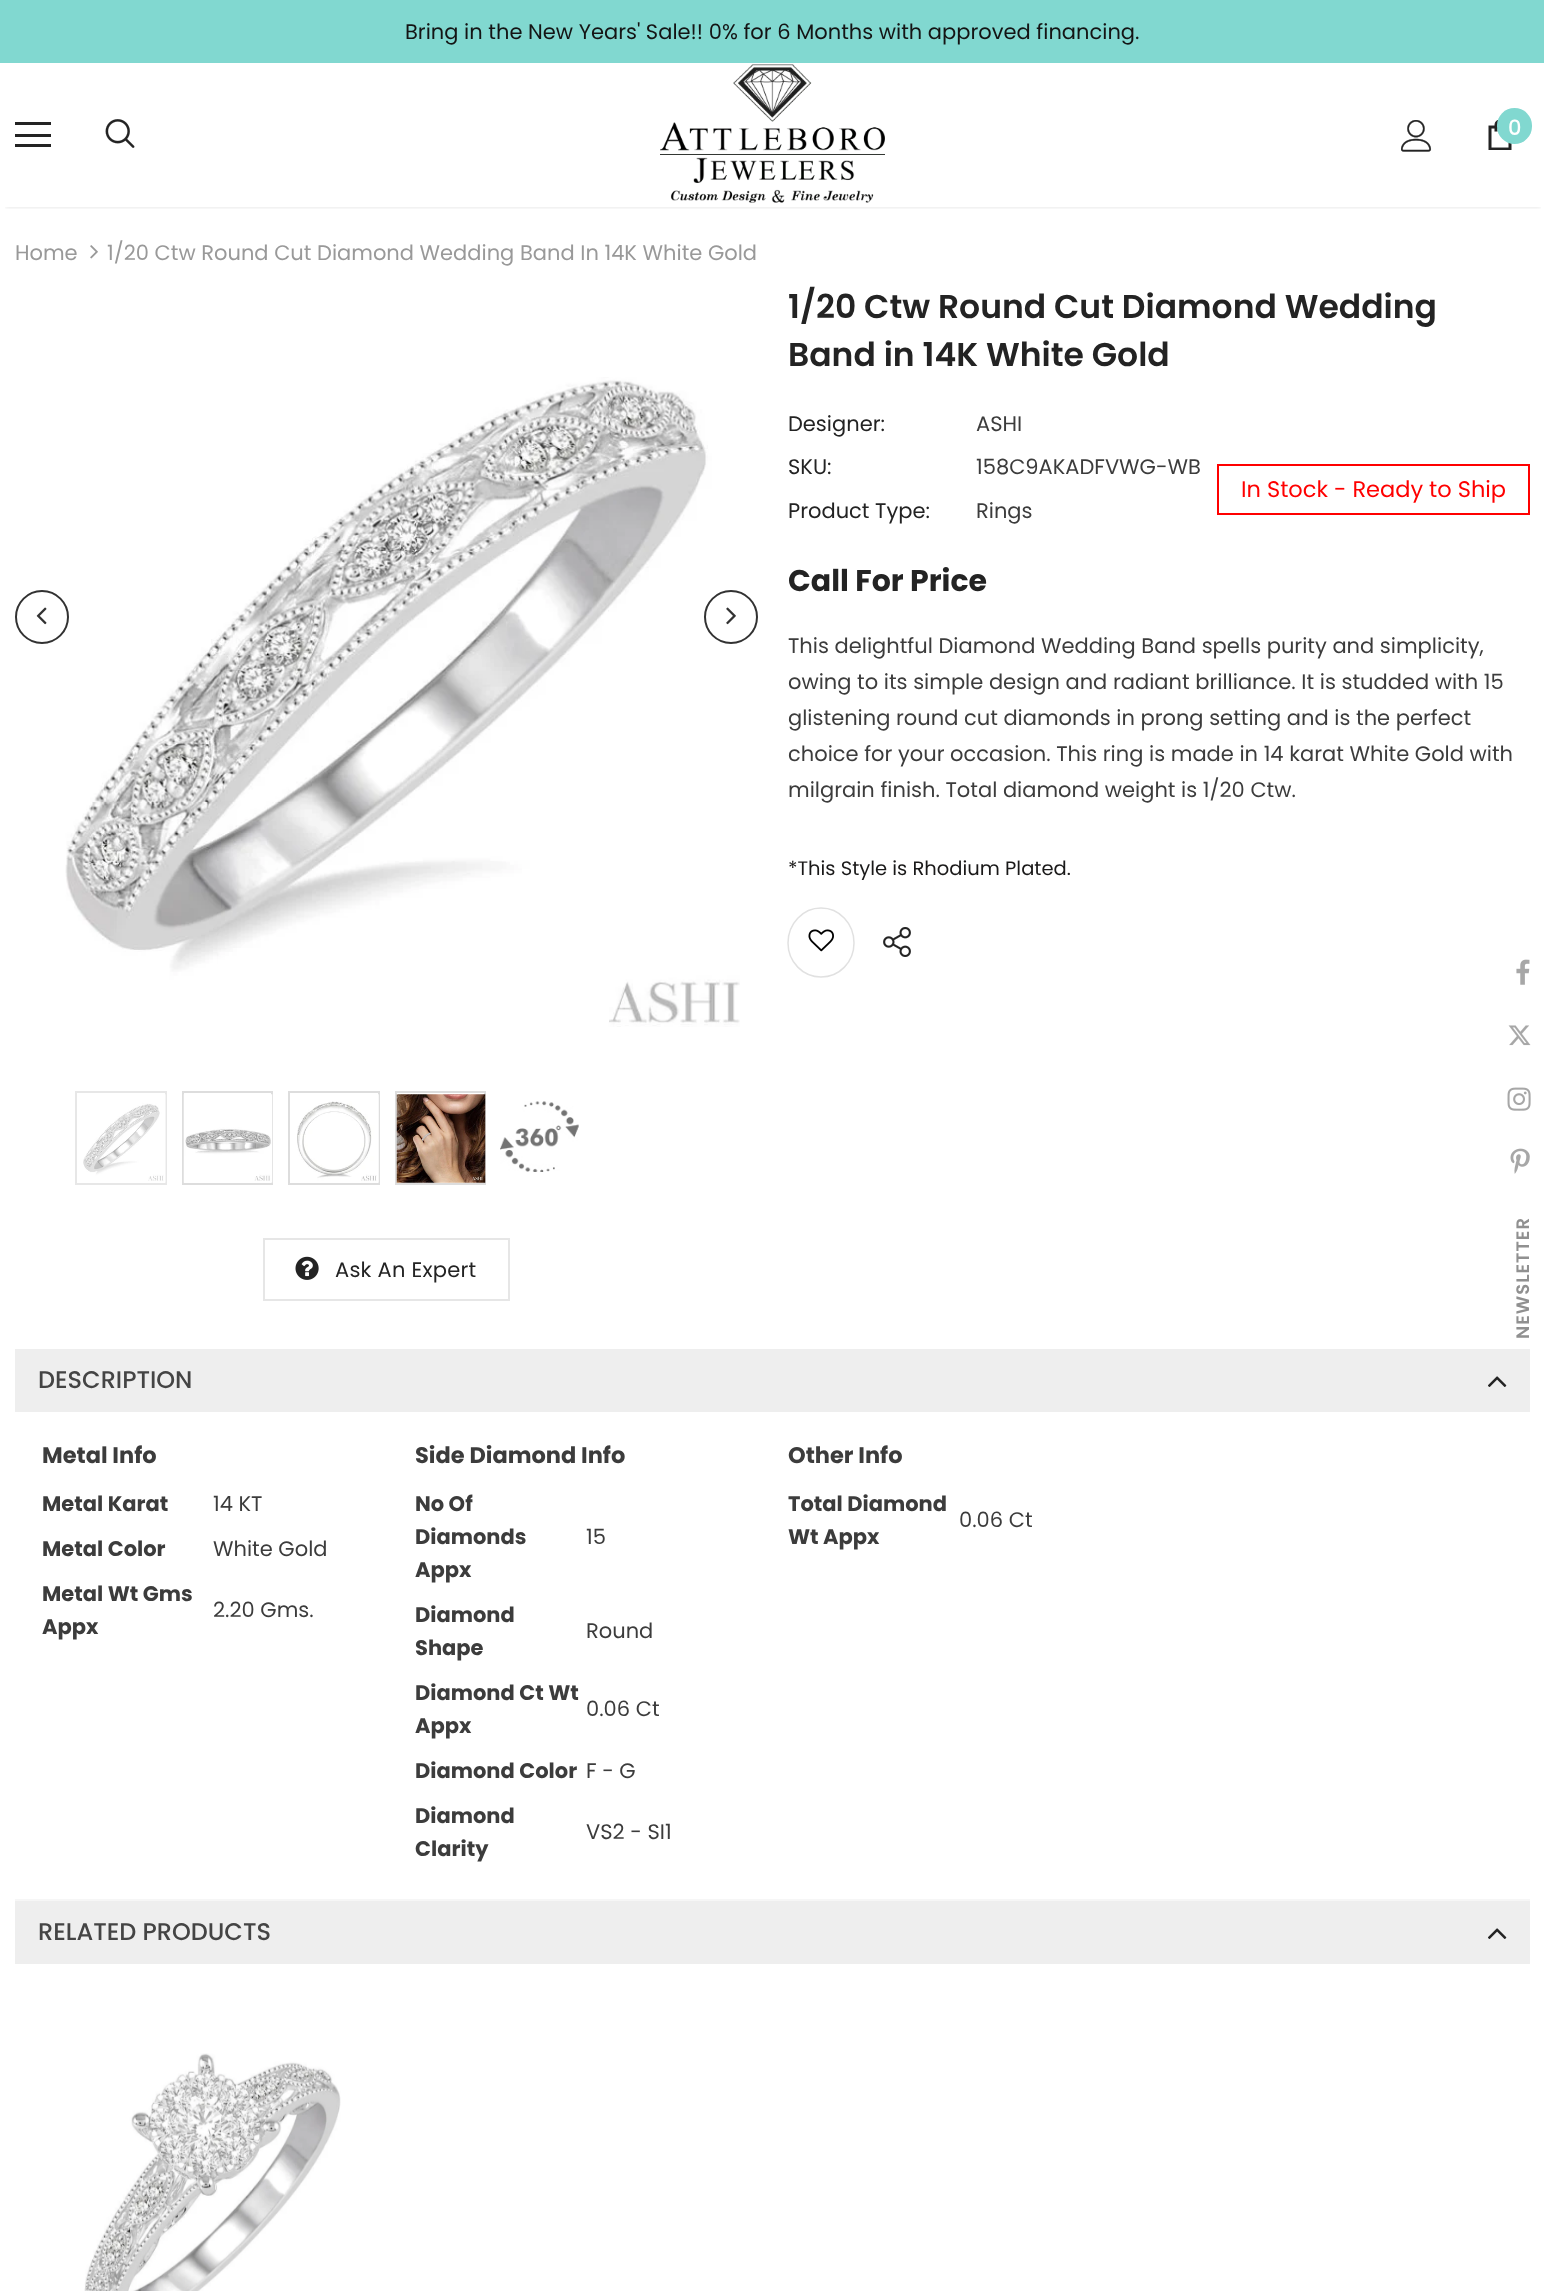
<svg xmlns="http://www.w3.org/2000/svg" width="1544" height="2291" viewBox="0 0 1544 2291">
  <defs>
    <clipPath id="clip1"><rect x="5" y="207" width="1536" height="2"/></clipPath>
    <filter id="blur1" x="-50%" y="-200%" width="200%" height="500%"><feGaussianBlur stdDeviation="2"/></filter>
  </defs>
  <rect width="100%" height="100%" fill="#ffffff"/>
  <rect x="0" y="0" width="1544" height="63" fill="#81d8d0"/>
  <text x="405" y="39" font-family="Poppins" font-size="21" fill="#141414">Bring in the New Years' Sale!! 0% for 6 Months with approved financing.</text>
  <g clip-path="url(#clip1)">
    <rect x="5" y="72" width="1536" height="135" fill="#000000" fill-opacity="0.12" filter="url(#blur1)"/>
  </g>
  <rect x="15" y="122" width="36" height="3" fill="#232323"/>
  <rect x="15" y="134" width="36" height="3" fill="#232323"/>
  <rect x="15" y="144" width="36" height="3" fill="#232323"/>
  <image x="105" y="119" width="30" height="29" href="img1.png"/>
  <image x="660" y="64" width="225" height="139" href="img2.png"/>
  <image x="1401" y="120" width="31" height="32" href="img3.png"/>
  <image x="1488" y="120" width="24" height="30" href="img4.png"/>
  <rect x="1497" y="108" width="35" height="36" rx="17.5" fill="#81d8d0"/>
  <text x="1508" y="135" font-family="Poppins" font-size="21" font-weight="500" fill="#ffffff">0</text>
  <text x="15" y="260" font-family="Poppins" font-size="21" fill="#999999">Home</text>
  <image x="90" y="245" width="8" height="14" href="img5.png"/>
  <text x="107" y="260" font-family="Poppins" font-size="21" fill="#999999">1/20 Ctw Round Cut Diamond Wedding Band In 14K White Gold</text>
  <text x="788" y="318" font-family="Poppins" font-size="33" font-weight="600" fill="#232323">1/20 Ctw Round Cut Diamond Wedding</text>
  <text x="788" y="366" font-family="Poppins" font-size="33" font-weight="600" fill="#232323">Band in 14K White Gold</text>
  <text x="788" y="431" font-family="Poppins" font-size="21" fill="#232323">Designer:</text>
  <text x="976" y="431" font-family="Poppins" font-size="21" fill="#3c3c3c">ASHI</text>
  <text x="788" y="474" font-family="Poppins" font-size="21" fill="#232323">SKU:</text>
  <text x="976" y="474" font-family="Poppins" font-size="21" fill="#3c3c3c">158C9AKADFVWG-WB</text>
  <rect x="1218" y="465" width="311" height="49" fill="none" stroke="#ff0000" stroke-width="2"/>
  <text x="1241" y="497" font-family="Poppins" font-size="22.5" fill="#ff0000">In Stock - Ready to Ship</text>
  <text x="788" y="518" font-family="Poppins" font-size="21" fill="#232323">Product Type:</text>
  <text x="976" y="518" font-family="Poppins" font-size="21" fill="#3c3c3c">Rings</text>
  <text x="788" y="591" font-family="Poppins" font-size="30" font-weight="bold" fill="#232323">Call For Price</text>
  <text x="788" y="653" font-family="Poppins" font-size="21" fill="#3c3c3c">This delightful Diamond Wedding Band spells purity and simplicity,</text>
  <text x="788" y="689" font-family="Poppins" font-size="21" fill="#3c3c3c">owing to its simple design and radiant brilliance. It is studded with 15</text>
  <text x="788" y="725" font-family="Poppins" font-size="21" fill="#3c3c3c">glistening round cut diamonds in prong setting and is the perfect</text>
  <text x="788" y="761" font-family="Poppins" font-size="21" fill="#3c3c3c">choice for your occasion. This ring is made in 14 karat White Gold with</text>
  <text x="788" y="797" font-family="Poppins" font-size="21" fill="#3c3c3c">milgrain finish. Total diamond weight is 1/20 Ctw.</text>
  <text x="788" y="875" font-family="Poppins" font-size="19.5" fill="#1a1919">*This Style is Rhodium Plated.</text>
  <path d="M821 908C839.5 908 854 923.5 854 943C854 962 839.5 977 821 977C803 977 788 962 788 943C788 923.5 803 908 821 908Z" fill="none" stroke="#e1e1e1" stroke-width="1.5"/>
  <image x="808" y="929" width="26" height="23" href="img6.png"/>
  <image x="883" y="927" width="28" height="30" href="img7.png"/>
  <image x="65" y="377" width="675" height="650" href="img9.png"/>
  <circle cx="42" cy="617" r="26" fill="none" stroke="#323232" stroke-width="2"/>
  <image x="36" y="607" width="11" height="18" href="img8.png"/>
  <circle cx="731" cy="617" r="26" fill="none" stroke="#323232" stroke-width="2"/>
  <image x="726" y="607" width="10" height="18" href="img10.png"/>
  <rect x="76" y="1092" width="90" height="92" fill="none" stroke="#e7e7e7" stroke-width="2"/>
  <image x="83" y="1094" width="83" height="89" href="img11.png"/>
  <rect x="183" y="1092" width="89" height="92" fill="none" stroke="#dddddd" stroke-width="2"/>
  <image x="183" y="1094" width="90" height="89" href="img12.png"/>
  <rect x="289" y="1092" width="90" height="92" fill="none" stroke="#dddddd" stroke-width="2"/>
  <image x="297" y="1094" width="82" height="89" href="img13.png"/>
  <rect x="396" y="1092" width="89" height="92" fill="none" stroke="#dddddd" stroke-width="2"/>
  <image x="396" y="1094" width="90" height="89" href="img14.png"/>
  <image x="500" y="1101" width="79" height="71" href="img15.png"/>
  <rect x="264" y="1239" width="245" height="61" fill="none" stroke="#e6e6e6" stroke-width="2"/>
  <image x="295" y="1256" width="24" height="24" href="img16.png"/>
  <text x="335" y="1277" font-family="Poppins" font-size="21" letter-spacing="0.25" fill="#232323">Ask An Expert</text>
  <rect x="15" y="1349" width="1515" height="63" fill="#eeeeee"/>
  <text x="38" y="1388" font-family="Poppins" font-size="24" font-weight="500" fill="#444444">DESCRIPTION</text>
  <image x="1488" y="1376" width="19" height="11" href="img17.png"/>
  <text x="42" y="1463" font-family="Poppins" font-size="22.5" font-weight="bold" fill="#3c3c3c">Metal Info</text>
  <text x="42" y="1511" font-family="Poppins" font-size="21" font-weight="bold" fill="#3c3c3c">Metal Karat</text>
  <text x="213" y="1511" font-family="Poppins" font-size="21" fill="#3c3c3c">14 KT</text>
  <text x="42" y="1556" font-family="Poppins" font-size="21" font-weight="bold" fill="#3c3c3c">Metal Color</text>
  <text x="213" y="1556" font-family="Poppins" font-size="21" fill="#3c3c3c">White Gold</text>
  <text x="42" y="1601" font-family="Poppins" font-size="21" font-weight="bold" fill="#3c3c3c">Metal Wt Gms</text>
  <text x="42" y="1634" font-family="Poppins" font-size="21" font-weight="bold" fill="#3c3c3c">Appx</text>
  <text x="213" y="1617" font-family="Poppins" font-size="21" fill="#3c3c3c">2.20 Gms.</text>
  <text x="415" y="1463" font-family="Poppins" font-size="22.5" font-weight="bold" fill="#3c3c3c">Side Diamond Info</text>
  <text x="415" y="1511" font-family="Poppins" font-size="21" font-weight="bold" fill="#3c3c3c">No Of</text>
  <text x="415" y="1544" font-family="Poppins" font-size="21" font-weight="bold" fill="#3c3c3c">Diamonds</text>
  <text x="415" y="1577" font-family="Poppins" font-size="21" font-weight="bold" fill="#3c3c3c">Appx</text>
  <text x="586" y="1544" font-family="Poppins" font-size="21" fill="#3c3c3c">15</text>
  <text x="415" y="1622" font-family="Poppins" font-size="21" font-weight="bold" fill="#3c3c3c">Diamond</text>
  <text x="415" y="1655" font-family="Poppins" font-size="21" font-weight="bold" fill="#3c3c3c">Shape</text>
  <text x="586" y="1638" font-family="Poppins" font-size="21" fill="#3c3c3c">Round</text>
  <text x="415" y="1700" font-family="Poppins" font-size="21" font-weight="bold" fill="#3c3c3c">Diamond Ct Wt</text>
  <text x="415" y="1733" font-family="Poppins" font-size="21" font-weight="bold" fill="#3c3c3c">Appx</text>
  <text x="586" y="1716" font-family="Poppins" font-size="21" fill="#3c3c3c">0.06 Ct</text>
  <text x="415" y="1778" font-family="Poppins" font-size="21" font-weight="bold" fill="#3c3c3c">Diamond Color</text>
  <text x="586" y="1778" font-family="Poppins" font-size="21" fill="#3c3c3c">F - G</text>
  <text x="415" y="1823" font-family="Poppins" font-size="21" font-weight="bold" fill="#3c3c3c">Diamond</text>
  <text x="415" y="1856" font-family="Poppins" font-size="21" font-weight="bold" fill="#3c3c3c">Clarity</text>
  <text x="586" y="1839" font-family="Poppins" font-size="21" fill="#3c3c3c">VS2 - SI1</text>
  <text x="788" y="1463" font-family="Poppins" font-size="22.5" font-weight="bold" fill="#3c3c3c">Other Info</text>
  <text x="788" y="1511" font-family="Poppins" font-size="21" font-weight="bold" fill="#3c3c3c">Total Diamond</text>
  <text x="788" y="1544" font-family="Poppins" font-size="21" font-weight="bold" fill="#3c3c3c">Wt Appx</text>
  <text x="959" y="1527" font-family="Poppins" font-size="21" fill="#3c3c3c">0.06 Ct</text>
  <rect x="15" y="1899" width="1515" height="2" fill="#f6f6f6"/>
  <rect x="15" y="1901" width="1515" height="63" fill="#eeeeee"/>
  <text x="38" y="1940" font-family="Poppins" font-size="24" font-weight="500" fill="#444444">RELATED PRODUCTS</text>
  <image x="1488" y="1928" width="19" height="11" href="img17.png"/>
  <image x="84" y="2053" width="257" height="238" href="img18.png"/>
  <image x="1516" y="959" width="14" height="26" href="img19.png"/>
  <image x="1508" y="1025" width="23" height="21" href="img20.png"/>
  <image x="1507" y="1087" width="24" height="24" href="img21.png"/>
  <image x="1510" y="1148" width="20" height="26" href="img22.png"/>
  <text x="1529" y="1339" transform="rotate(-90 1529 1339)" font-family="Poppins" font-size="18" font-weight="600" letter-spacing="1" fill="#909090">NEWSLETTER</text>
</svg>
